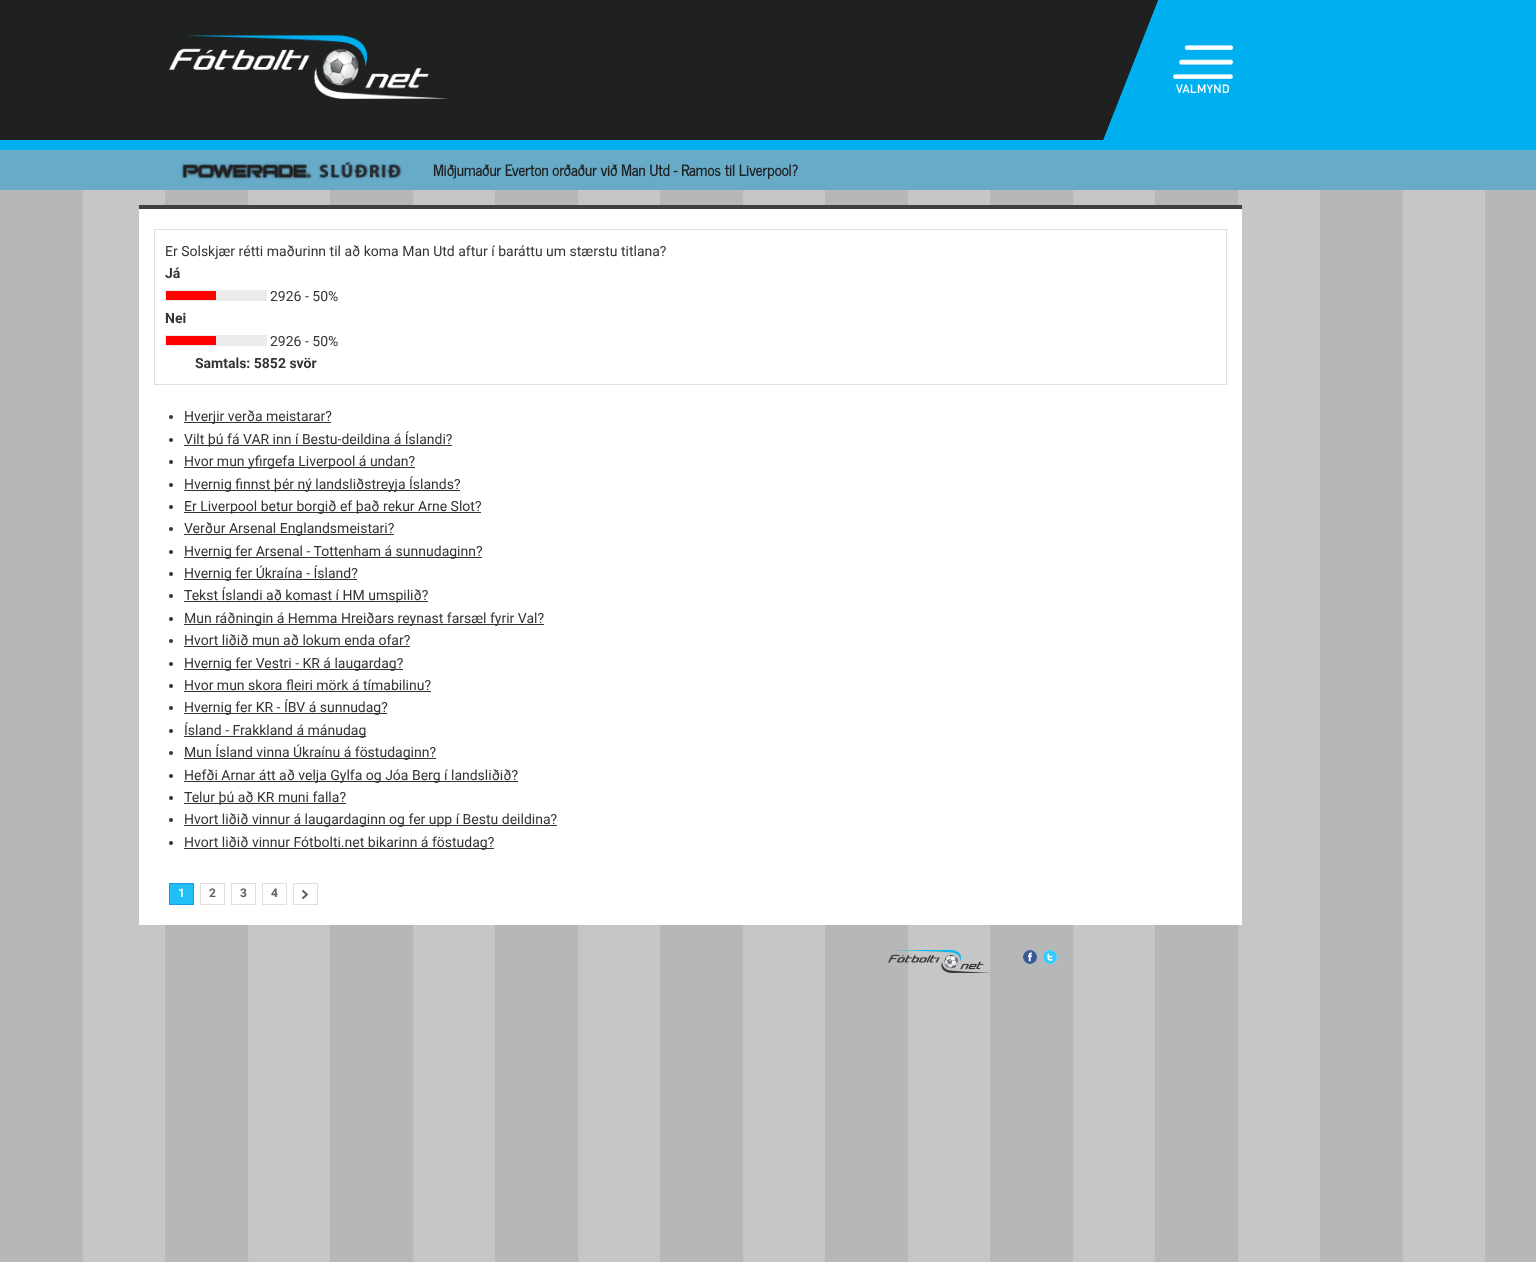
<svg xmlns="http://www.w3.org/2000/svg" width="1536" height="1262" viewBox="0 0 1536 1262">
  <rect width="100%" height="100%" fill="#ffffff"/>
  <image x="0" y="190" width="1536" height="1072" href="img1.png"/>
  <rect x="0" y="0" width="1158" height="140" fill="#1f2121"/>
  <rect x="1248" y="0" width="288" height="140" fill="#00afef"/>
  <rect x="0" y="140" width="1536" height="10" fill="#00afef"/>
  <image x="169" y="35" width="279" height="64" href="img2.png"/>
  <path d="M1248 140H1103L1158 0H1248Z" fill="#00afef"/>
  <path d="M1103 140V0H1158Z" fill="#1f2121"/>
  <image x="1173" y="45" width="60" height="34" href="img3.png"/>
  <text x="1176" y="93" font-family="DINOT" font-size="12" font-weight="500" fill="#ffffff">VALMYND</text>
  <rect x="0" y="150" width="1536" height="40" fill="#68abc9"/>
  <image x="181" y="160" width="222" height="20" href="img4.png"/>
  <text x="433" y="176" font-family="News Cycle" font-size="15" font-weight="bold" fill="#1f2121">Miðjumaður Everton orðaður við Man Utd - Ramos til Liverpool?</text>
  <rect x="139" y="209" width="1103" height="716" fill="#ffffff"/>
  <rect x="139" y="205" width="1103" height="4" fill="#404040"/>
  <rect x="154.5" y="229.5" width="1072" height="155" fill="none" stroke="#dfdfdf"/>
  <text x="165" y="256" font-family="Roboto" font-size="14" fill="#343434">Er Solskjær rétti maðurinn til að koma Man Utd aftur í baráttu um stærstu titlana?</text>
  <text x="165" y="278" font-family="Roboto" font-size="14" font-weight="bold" fill="#343434">Já</text>
  <rect x="165" y="290" width="102" height="11" fill="#ebebeb"/>
  <rect x="166" y="291" width="50" height="9" fill="#ff0000"/>
  <text x="270" y="301" font-family="Roboto" font-size="14" fill="#343434">2926 - 50%</text>
  <text x="165" y="323" font-family="Roboto" font-size="14" font-weight="bold" fill="#343434">Nei</text>
  <rect x="165" y="335" width="102" height="11" fill="#ebebeb"/>
  <rect x="166" y="336" width="50" height="9" fill="#ff0000"/>
  <text x="270" y="346" font-family="Roboto" font-size="14" fill="#343434">2926 - 50%</text>
  <text x="195" y="368" font-family="Roboto" font-size="14" font-weight="bold" fill="#343434">Samtals: 5852 svör</text>
  <circle cx="171" cy="417" r="2" fill="#343434"/>
  <rect x="184" y="422" width="147" height="1" fill="#343434"/>
  <text x="184" y="421" font-family="Roboto" font-size="14" fill="#343434">Hverjir verða meistarar?</text>
  <circle cx="171" cy="440" r="2" fill="#343434"/>
  <rect x="184" y="445" width="268" height="1" fill="#343434"/>
  <text x="184" y="444" font-family="Roboto" font-size="14" fill="#343434">Vilt þú fá VAR inn í Bestu-deildina á Íslandi?</text>
  <circle cx="171" cy="462" r="2" fill="#343434"/>
  <rect x="184" y="467" width="231" height="1" fill="#343434"/>
  <text x="184" y="466" font-family="Roboto" font-size="14" fill="#343434">Hvor mun yfirgefa Liverpool á undan?</text>
  <circle cx="171" cy="485" r="2" fill="#343434"/>
  <rect x="184" y="490" width="276" height="1" fill="#343434"/>
  <text x="184" y="489" font-family="Roboto" font-size="14" fill="#343434">Hvernig finnst þér ný landsliðstreyja Íslands?</text>
  <circle cx="171" cy="507" r="2" fill="#343434"/>
  <rect x="184" y="512" width="297" height="1" fill="#343434"/>
  <text x="184" y="511" font-family="Roboto" font-size="14" fill="#343434">Er Liverpool betur borgið ef það rekur Arne Slot?</text>
  <circle cx="171" cy="529" r="2" fill="#343434"/>
  <rect x="184" y="534" width="210" height="1" fill="#343434"/>
  <text x="184" y="533" font-family="Roboto" font-size="14" fill="#343434">Verður Arsenal Englandsmeistari?</text>
  <circle cx="171" cy="552" r="2" fill="#343434"/>
  <rect x="184" y="557" width="298" height="1" fill="#343434"/>
  <text x="184" y="556" font-family="Roboto" font-size="14" fill="#343434">Hvernig fer Arsenal - Tottenham á sunnudaginn?</text>
  <circle cx="171" cy="574" r="2" fill="#343434"/>
  <rect x="184" y="579" width="173" height="1" fill="#343434"/>
  <text x="184" y="578" font-family="Roboto" font-size="14" fill="#343434">Hvernig fer Úkraína - Ísland?</text>
  <circle cx="171" cy="596" r="2" fill="#343434"/>
  <rect x="184" y="601" width="244" height="1" fill="#343434"/>
  <text x="184" y="600" font-family="Roboto" font-size="14" fill="#343434">Tekst Íslandi að komast í HM umspilið?</text>
  <circle cx="171" cy="619" r="2" fill="#343434"/>
  <rect x="184" y="624" width="360" height="1" fill="#343434"/>
  <text x="184" y="623" font-family="Roboto" font-size="14" fill="#343434">Mun ráðningin á Hemma Hreiðars reynast farsæl fyrir Val?</text>
  <circle cx="171" cy="641" r="2" fill="#343434"/>
  <text x="184" y="645" font-family="Roboto" font-size="14" fill="#343434">Hvort liðið mun að lokum enda ofar?</text>
  <rect x="184" y="646" width="226" height="1" fill="#343434"/>
  <circle cx="171" cy="664" r="2" fill="#343434"/>
  <rect x="184" y="669" width="219" height="1" fill="#343434"/>
  <text x="184" y="668" font-family="Roboto" font-size="14" fill="#343434">Hvernig fer Vestri - KR á laugardag?</text>
  <circle cx="171" cy="686" r="2" fill="#343434"/>
  <text x="184" y="690" font-family="Roboto" font-size="14" fill="#343434">Hvor mun skora fleiri mörk á tímabilinu?</text>
  <rect x="184" y="691" width="247" height="1" fill="#343434"/>
  <circle cx="171" cy="708" r="2" fill="#343434"/>
  <rect x="184" y="713" width="203" height="1" fill="#343434"/>
  <text x="184" y="712" font-family="Roboto" font-size="14" fill="#343434">Hvernig fer KR - ÍBV á sunnudag?</text>
  <circle cx="171" cy="731" r="2" fill="#343434"/>
  <rect x="184" y="736" width="182" height="1" fill="#343434"/>
  <text x="184" y="735" font-family="Roboto" font-size="14" fill="#343434">Ísland - Frakkland á mánudag</text>
  <circle cx="171" cy="753" r="2" fill="#343434"/>
  <rect x="184" y="758" width="252" height="1" fill="#343434"/>
  <text x="184" y="757" font-family="Roboto" font-size="14" fill="#343434">Mun Ísland vinna Úkraínu á föstudaginn?</text>
  <circle cx="171" cy="776" r="2" fill="#343434"/>
  <rect x="184" y="781" width="334" height="1" fill="#343434"/>
  <text x="184" y="780" font-family="Roboto" font-size="14" fill="#343434">Hefði Arnar átt að velja Gylfa og Jóa Berg í landsliðið?</text>
  <circle cx="171" cy="798" r="2" fill="#343434"/>
  <rect x="184" y="803" width="162" height="1" fill="#343434"/>
  <text x="184" y="802" font-family="Roboto" font-size="14" fill="#343434">Telur þú að KR muni falla?</text>
  <circle cx="171" cy="820" r="2" fill="#343434"/>
  <rect x="184" y="825" width="373" height="1" fill="#343434"/>
  <text x="184" y="824" font-family="Roboto" font-size="14" fill="#343434">Hvort liðið vinnur á laugardaginn og fer upp í Bestu deildina?</text>
  <circle cx="171" cy="843" r="2" fill="#343434"/>
  <rect x="184" y="848" width="310" height="1" fill="#343434"/>
  <text x="184" y="847" font-family="Roboto" font-size="14" fill="#343434">Hvort liðið vinnur Fótbolti.net bikarinn á föstudag?</text>
  <rect x="169.5" y="883.5" width="24" height="21" fill="#20bff6" stroke="#1999e7"/>
  <text x="178" y="897" font-family="Roboto" font-size="12" font-weight="bold" fill="#ffffff">1</text>
  <rect x="200.5" y="883.5" width="24" height="21" fill="none" stroke="#dfdfdf"/>
  <text x="209" y="897" font-family="Roboto" font-size="12" font-weight="bold" fill="#5f5f5f">2</text>
  <rect x="231.5" y="883.5" width="24" height="21" fill="none" stroke="#dfdfdf"/>
  <text x="240" y="897" font-family="Roboto" font-size="12" font-weight="bold" fill="#5f5f5f">3</text>
  <rect x="262.5" y="883.5" width="24" height="21" fill="none" stroke="#dfdfdf"/>
  <text x="271" y="897" font-family="Roboto" font-size="12" font-weight="bold" fill="#5f5f5f">4</text>
  <image x="302" y="890" width="6" height="9" href="img5.png"/>
  <rect x="293.5" y="883.5" width="24" height="21" fill="none" stroke="#dfdfdf"/>
  <image x="888" y="950" width="103" height="23" href="img6.png"/>
  <image x="1023" y="950" width="34" height="14" href="img7.png"/>
</svg>
